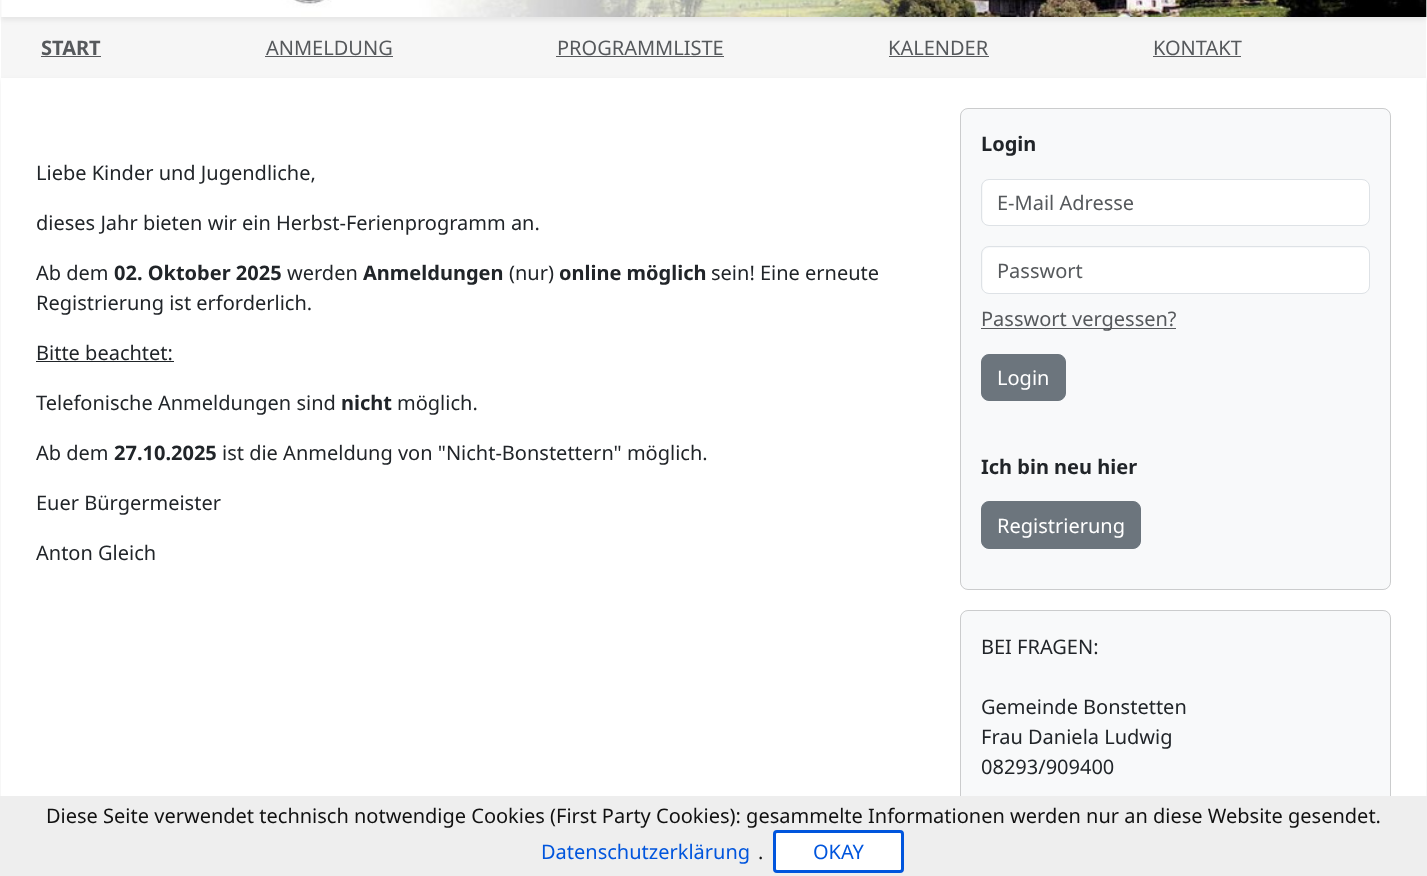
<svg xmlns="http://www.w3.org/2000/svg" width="1427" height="876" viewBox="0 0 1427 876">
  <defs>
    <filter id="blur1" x="-50%" y="-200%" width="200%" height="500%"><feGaussianBlur stdDeviation="2.5"/></filter>
  </defs>
  <rect width="100%" height="100%" fill="#ffffff"/>
  <rect x="1" y="0" width="1425" height="78" fill="#f6f6f6"/>
  <rect x="1" y="-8" width="1425" height="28" fill="#000000" fill-opacity="0.07" filter="url(#blur1)"/>
  <image x="1" y="0" width="1426" height="17" href="img1.png"/>
  <text x="41" y="55" font-family="Noto Sans" font-size="20" font-weight="bold" fill="#56595c">START</text>
  <rect x="41" y="56" width="60" height="1" fill="#56595c"/>
  <text x="266" y="55" font-family="Noto Sans" font-size="20" fill="#56595c">ANMELDUNG</text>
  <rect x="265" y="56" width="128" height="1" fill="#56595c"/>
  <text x="557" y="55" font-family="Noto Sans" font-size="20" fill="#56595c">PROGRAMMLISTE</text>
  <rect x="556" y="56" width="168" height="1" fill="#56595c"/>
  <text x="888" y="55" font-family="Noto Sans" font-size="20" fill="#56595c">KALENDER</text>
  <rect x="889" y="56" width="100" height="1" fill="#56595c"/>
  <text x="1153" y="55" font-family="Noto Sans" font-size="20" fill="#56595c">KONTAKT</text>
  <rect x="1153" y="56" width="88" height="1" fill="#56595c"/>
  <rect x="1" y="80" width="1425" height="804" fill="#000000" fill-opacity="0.07" filter="url(#blur1)"/>
  <rect x="1" y="78" width="1425" height="718" fill="#ffffff"/>
  <text x="36" y="180" font-family="Noto Sans" font-size="20" fill="#212529">Liebe Kinder und Jugendliche,</text>
  <text x="36" y="230" font-family="Noto Sans" font-size="20" fill="#212529">dieses Jahr bieten wir ein Herbst-Ferienprogramm an.</text>
  <text x="36" y="280" font-family="Noto Sans" font-size="20" fill="#212529">Ab dem</text>
  <text x="114" y="280" font-family="Noto Sans" font-size="20" font-weight="bold" fill="#212529">02. Oktober 2025</text>
  <text x="287" y="280" font-family="Noto Sans" font-size="20" fill="#212529">werden</text>
  <text x="363" y="280" font-family="Noto Sans" font-size="20" font-weight="bold" fill="#212529">Anmeldungen</text>
  <text x="509" y="280" font-family="Noto Sans" font-size="20" fill="#212529">(nur)</text>
  <text x="559" y="280" font-family="Noto Sans" font-size="20" font-weight="bold" fill="#212529">online möglich</text>
  <text x="711" y="280" font-family="Noto Sans" font-size="20" fill="#212529">sein! Eine erneute</text>
  <text x="36" y="310" font-family="Noto Sans" font-size="20" fill="#212529">Registrierung ist erforderlich.</text>
  <text x="36" y="360" font-family="Noto Sans" font-size="20" fill="#212529">Bitte beachtet:</text>
  <rect x="36" y="361" width="138" height="1" fill="#212529"/>
  <text x="36" y="410" font-family="Noto Sans" font-size="20" fill="#212529">Telefonische Anmeldungen sind</text>
  <text x="341" y="410" font-family="Noto Sans" font-size="20" font-weight="bold" fill="#212529">nicht</text>
  <text x="397" y="410" font-family="Noto Sans" font-size="20" fill="#212529">möglich.</text>
  <text x="36" y="460" font-family="Noto Sans" font-size="20" fill="#212529">Ab dem</text>
  <text x="114" y="460" font-family="Noto Sans" font-size="20" font-weight="bold" fill="#212529">27.10.2025</text>
  <text x="222" y="460" font-family="Noto Sans" font-size="20" fill="#212529">ist die Anmeldung von "Nicht-Bonstettern" möglich.</text>
  <text x="36" y="510" font-family="Noto Sans" font-size="20" fill="#212529">Euer Bürgermeister</text>
  <text x="36" y="560" font-family="Noto Sans" font-size="20" fill="#212529">Anton Gleich</text>
  <rect x="960" y="108" width="431" height="482" rx="8" fill="#f8f9fa"/>
  <rect x="960.5" y="108.5" width="430" height="481" rx="7.5" fill="none" stroke="#000000" stroke-opacity="0.18"/>
  <text x="981" y="151" font-family="Noto Sans" font-size="20" font-weight="bold" fill="#212529">Login</text>
  <rect x="983" y="180" width="386" height="45" rx="6" fill="#ffffff"/>
  <rect x="981.5" y="179.5" width="388" height="46" rx="7.5" fill="none" stroke="#dee2e6"/>
  <text x="997" y="210" font-family="Noto Sans" font-size="20" fill="#56595c">E-Mail Adresse</text>
  <rect x="983" y="248" width="386" height="45" rx="6" fill="#ffffff"/>
  <rect x="981.5" y="246.5" width="388" height="47" rx="7.5" fill="none" stroke="#dee2e6"/>
  <text x="997" y="278" font-family="Noto Sans" font-size="20" fill="#56595c">Passwort</text>
  <rect x="981" y="328" width="195" height="1" fill="#575a5d"/>
  <text x="981" y="326" font-family="Noto Sans" font-size="20" fill="#56595c">Passwort vergessen?</text>
  <rect x="981.5" y="354.5" width="84" height="46" rx="7.5" fill="#6c757d" stroke="#6c757d"/>
  <text x="997" y="385" font-family="Noto Sans" font-size="20" fill="#ffffff">Login</text>
  <text x="981" y="474" font-family="Noto Sans" font-size="20" font-weight="bold" fill="#212529">Ich bin neu hier</text>
  <rect x="981.5" y="501.5" width="159" height="47" rx="7.5" fill="#6c757d" stroke="#6c757d"/>
  <text x="997" y="533" font-family="Noto Sans" font-size="20" fill="#ffffff">Registrierung</text>
  <rect x="960" y="610" width="431" height="244" rx="8" fill="#f8f9fa"/>
  <rect x="960.5" y="610.5" width="430" height="243" rx="7.5" fill="none" stroke="#000000" stroke-opacity="0.18"/>
  <text x="981" y="654" font-family="Noto Sans" font-size="20" fill="#212529">BEI FRAGEN:</text>
  <text x="981" y="714" font-family="Noto Sans" font-size="20" fill="#212529">Gemeinde Bonstetten</text>
  <text x="981" y="744" font-family="Noto Sans" font-size="20" fill="#212529">Frau Daniela Ludwig</text>
  <text x="981" y="774" font-family="Noto Sans" font-size="20" fill="#212529">08293/909400</text>
  <rect x="0" y="796" width="1427" height="80" fill="#eeeeee"/>
  <text x="46" y="823" font-family="Noto Sans" font-size="20" fill="#111111">Diese Seite verwendet technisch notwendige Cookies (First Party Cookies): gesammelte Informationen werden nur an diese Website gesendet.</text>
  <text x="541" y="859" font-family="Noto Sans" font-size="20" fill="#0055dd">Datenschutzerklärung</text>
  <text x="758" y="859" font-family="Noto Sans" font-size="20" fill="#111111">.</text>
  <rect x="774.5" y="831.5" width="128" height="40" rx="2.5" fill="#ffffff" stroke="#0055dd" stroke-width="3"/>
  <text x="813" y="859" font-family="Noto Sans" font-size="20" fill="#0055dd">OKAY</text>
</svg>
